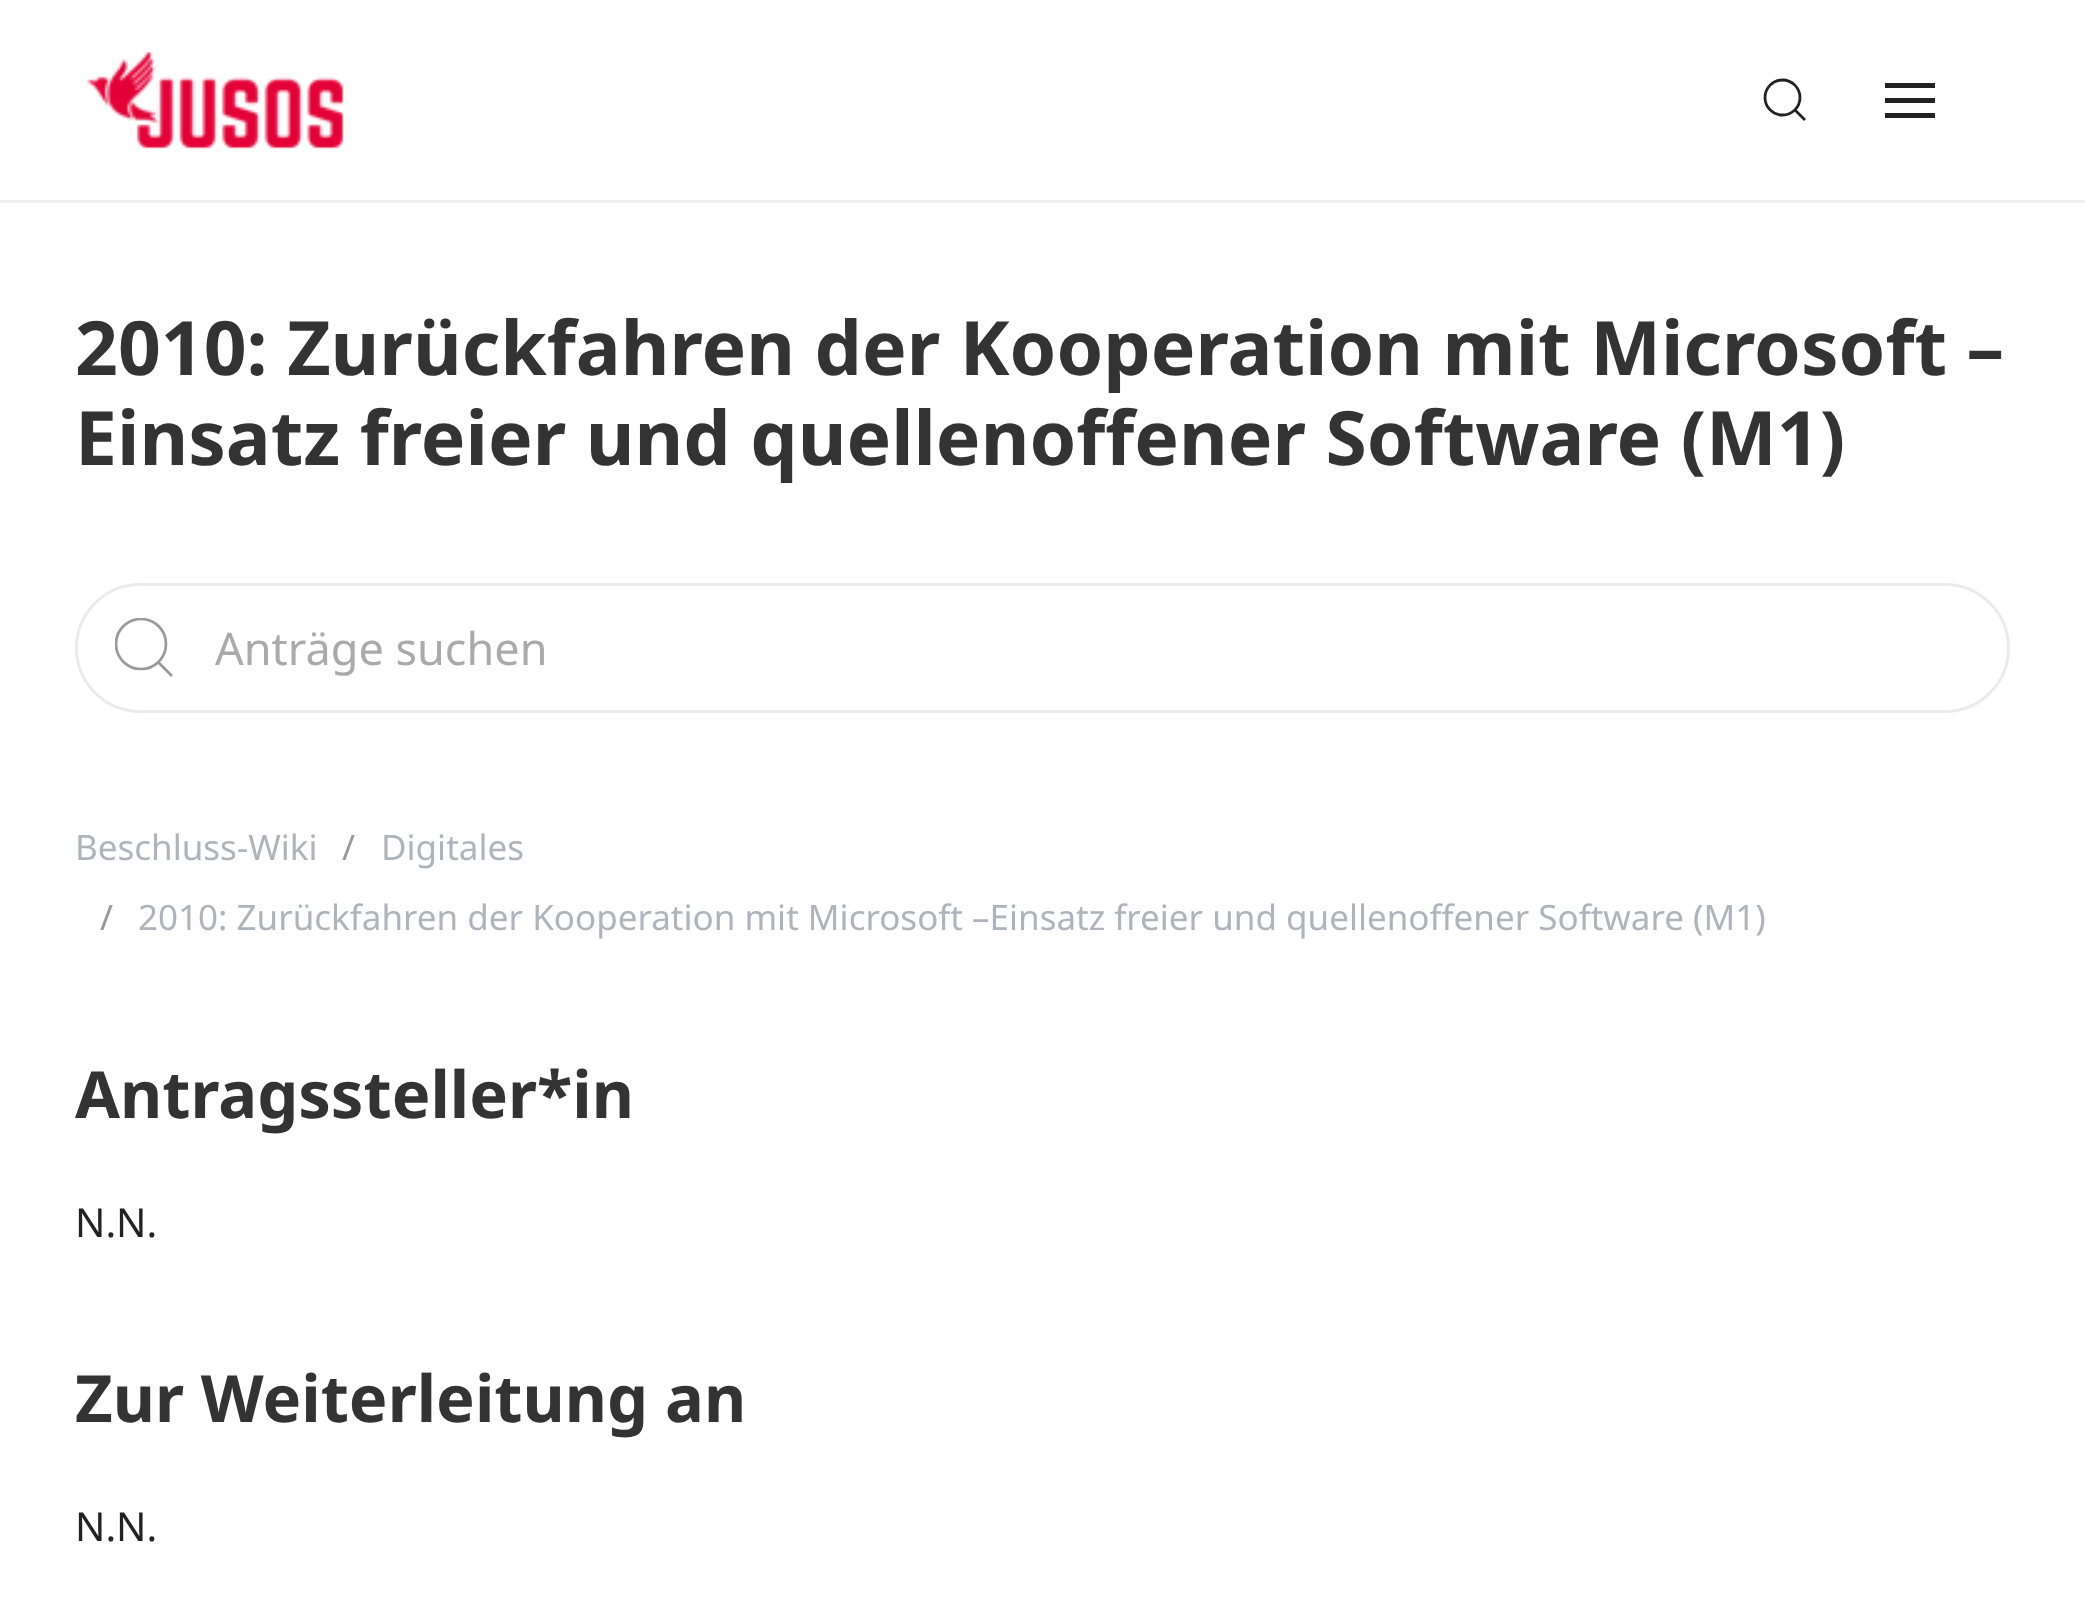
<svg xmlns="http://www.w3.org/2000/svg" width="2085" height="1607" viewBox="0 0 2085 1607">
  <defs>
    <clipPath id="clip1"><rect x="115" y="618" width="60" height="60"/></clipPath>
  </defs>
  <rect width="100%" height="100%" fill="#ffffff"/>
  <rect x="0" y="200" width="2085" height="3" fill="#f0f0f0"/>
  <image x="87" y="51" width="257" height="98" href="img1.png"/>
  <circle cx="1782.5" cy="97.5" r="17.5" fill="none" stroke="#222222" stroke-width="2.8"/>
  <path d="M1795 110L1805 120Z" fill="none" stroke="#222222" stroke-width="2.8"/>
  <rect x="1885" y="98" width="50" height="5" fill="#222222"/>
  <rect x="1885" y="83" width="50" height="5" fill="#222222"/>
  <rect x="1885" y="113" width="50" height="5" fill="#222222"/>
  <text x="75" y="375" font-family="Noto Sans" font-size="75" font-weight="bold" fill="#333333">2010: Zurückfahren der Kooperation mit Microsoft –</text>
  <text x="75" y="465" font-family="Noto Sans" font-size="75" font-weight="bold" fill="#333333">Einsatz freier und quellenoffener Software (M1)</text>
  <rect x="76.5" y="584.5" width="1932" height="127" rx="63.5" fill="none" stroke="#ebebeb" stroke-width="3"/>
  <g clip-path="url(#clip1)">
    <circle cx="141" cy="644" r="25" fill="none" stroke="#999999" stroke-width="2.7"/>
  </g>
  <path d="M172 676L158.5 662.5" fill="none" stroke="#999999" stroke-width="2.7"/>
  <text x="215" y="665" font-family="Noto Sans" font-size="45" fill="#aaaaaa">Anträge suchen</text>
  <text x="75" y="860" font-family="Noto Sans" font-size="35" fill="#aeb4bb">Beschluss-Wiki</text>
  <text x="342" y="860" font-family="Noto Sans" font-size="35" fill="#999999">/</text>
  <text x="381" y="860" font-family="Noto Sans" font-size="35" fill="#aeb4bb">Digitales</text>
  <text x="100" y="930" font-family="Noto Sans" font-size="35" fill="#999999">/</text>
  <text x="138" y="930" font-family="Noto Sans" font-size="35" fill="#aeb4bb">2010: Zurückfahren der Kooperation mit Microsoft –Einsatz freier und quellenoffener Software (M1)</text>
  <text x="75" y="1118" font-family="Noto Sans" font-size="65" font-weight="bold" fill="#333333">Antragssteller*in</text>
  <text x="75" y="1237" font-family="Noto Sans" font-size="40" fill="#222222">N.N.</text>
  <text x="75" y="1422" font-family="Noto Sans" font-size="65" font-weight="bold" fill="#333333">Zur Weiterleitung an</text>
  <text x="75" y="1541" font-family="Noto Sans" font-size="40" fill="#222222">N.N.</text>
</svg>
